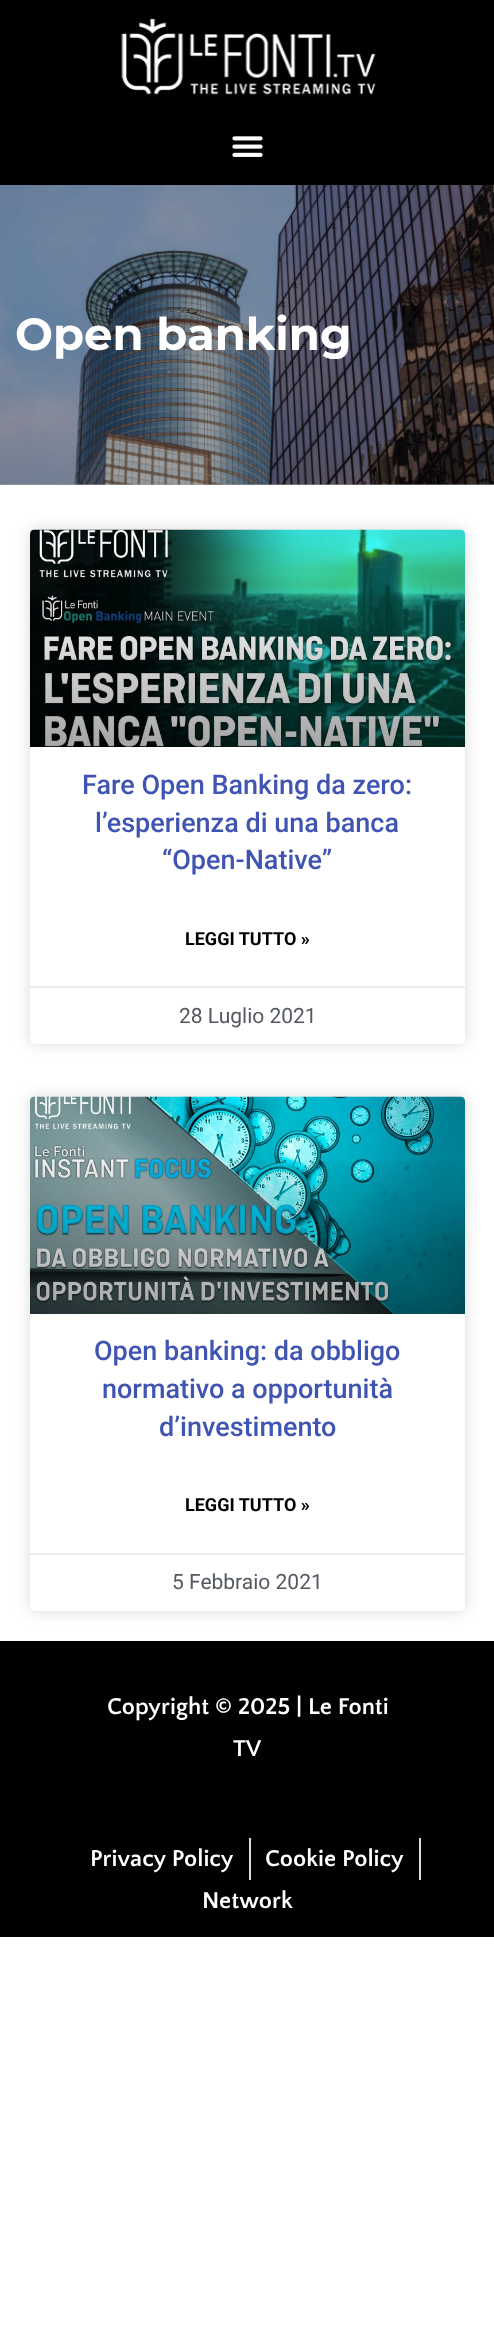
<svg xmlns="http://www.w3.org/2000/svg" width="494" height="2331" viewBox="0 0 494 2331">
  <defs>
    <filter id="blur1" x="-50%" y="-200%" width="200%" height="500%"><feGaussianBlur stdDeviation="7.5"/></filter>
    <linearGradient id="g1" gradientUnits="userSpaceOnUse" x1="248" y1="747" x2="248" y2="530"><stop offset="0" stop-color="#000000" stop-opacity="0.35"/><stop offset="0.75" stop-color="#000000" stop-opacity="0"/></linearGradient>
    <linearGradient id="g2" gradientUnits="userSpaceOnUse" x1="248" y1="1314" x2="248" y2="1097"><stop offset="0" stop-color="#000000" stop-opacity="0.35"/><stop offset="0.75" stop-color="#000000" stop-opacity="0"/></linearGradient>
  </defs>
  <rect width="100%" height="100%" fill="#ffffff"/>
  <rect x="0" y="484" width="494" height="1" fill="#a3a3a3"/>
  <rect x="0" y="0" width="494" height="185" fill="#000000"/>
  <image x="121" y="18" width="255" height="77" href="img1.png"/>
  <image x="232" y="136" width="31" height="21" href="img2.png"/>
  <image x="0" y="185" width="494" height="300" href="img3.png"/>
  <text x="15" y="350" font-family="Montserrat" font-size="45" font-weight="bold" fill="#ffffff">Open banking</text>
  <rect x="30" y="530" width="435" height="514" rx="5" fill="#000000" fill-opacity="0.15" filter="url(#blur1)"/>
  <rect x="30" y="530" width="435" height="514" rx="5" fill="#ffffff"/>
  <image x="30" y="529" width="435" height="218" href="img4.png"/>
  <rect x="34" y="594" width="431" height="153" fill="url(#g1)"/>
  <text x="82" y="794" font-family="Roboto" font-size="27" font-weight="500" fill="#4054b2">Fare Open Banking da zero:</text>
  <text x="95" y="832" font-family="Roboto" font-size="27" font-weight="500" fill="#4054b2">l’esperienza di una banca</text>
  <text x="162" y="869" font-family="Roboto" font-size="27" font-weight="500" fill="#4054b2">“Open-Native”</text>
  <text x="185" y="945" font-family="Roboto" font-size="18" font-weight="bold" fill="#000000">LEGGI TUTTO »</text>
  <rect x="30" y="986" width="435" height="2" fill="#eaeaea"/>
  <text x="179" y="1023" font-family="Roboto" font-size="21" fill="#54595f">28 Luglio 2021</text>
  <rect x="30" y="1097" width="435" height="514" rx="5" fill="#000000" fill-opacity="0.15" filter="url(#blur1)"/>
  <rect x="30" y="1097" width="435" height="514" rx="5" fill="#ffffff"/>
  <image x="30" y="1096" width="435" height="218" href="img5.png"/>
  <rect x="30" y="1161" width="435" height="153" fill="url(#g2)"/>
  <text x="94" y="1360" font-family="Roboto" font-size="27" font-weight="500" fill="#4054b2">Open banking: da obbligo</text>
  <text x="102" y="1398" font-family="Roboto" font-size="27" font-weight="500" fill="#4054b2">normativo a opportunità</text>
  <text x="159" y="1436" font-family="Roboto" font-size="27" font-weight="500" fill="#4054b2">d’investimento</text>
  <text x="185" y="1511" font-family="Roboto" font-size="18" font-weight="bold" fill="#000000">LEGGI TUTTO »</text>
  <rect x="30" y="1553" width="435" height="2" fill="#eaeaea"/>
  <text x="172" y="1589" font-family="Roboto" font-size="21" fill="#54595f">5 Febbraio 2021</text>
  <rect x="0" y="1641" width="494" height="296" fill="#000000"/>
  <text x="107" y="1714" font-family="Quattrocento Sans" font-size="24" font-weight="bold" fill="#ffffff">Copyright © 2025 | Le Fonti</text>
  <text x="233" y="1756" font-family="Quattrocento Sans" font-size="24" font-weight="bold" fill="#ffffff">TV</text>
  <text x="90" y="1866" font-family="Quattrocento Sans" font-size="24" font-weight="bold" fill="#ffffff">Privacy Policy</text>
  <rect x="249" y="1838" width="2" height="42" fill="#dddddd"/>
  <text x="265" y="1866" font-family="Quattrocento Sans" font-size="24" font-weight="bold" fill="#ffffff">Cookie Policy</text>
  <rect x="419" y="1838" width="2" height="42" fill="#dddddd"/>
  <text x="202" y="1908" font-family="Quattrocento Sans" font-size="24" font-weight="bold" fill="#ffffff">Network</text>
</svg>
